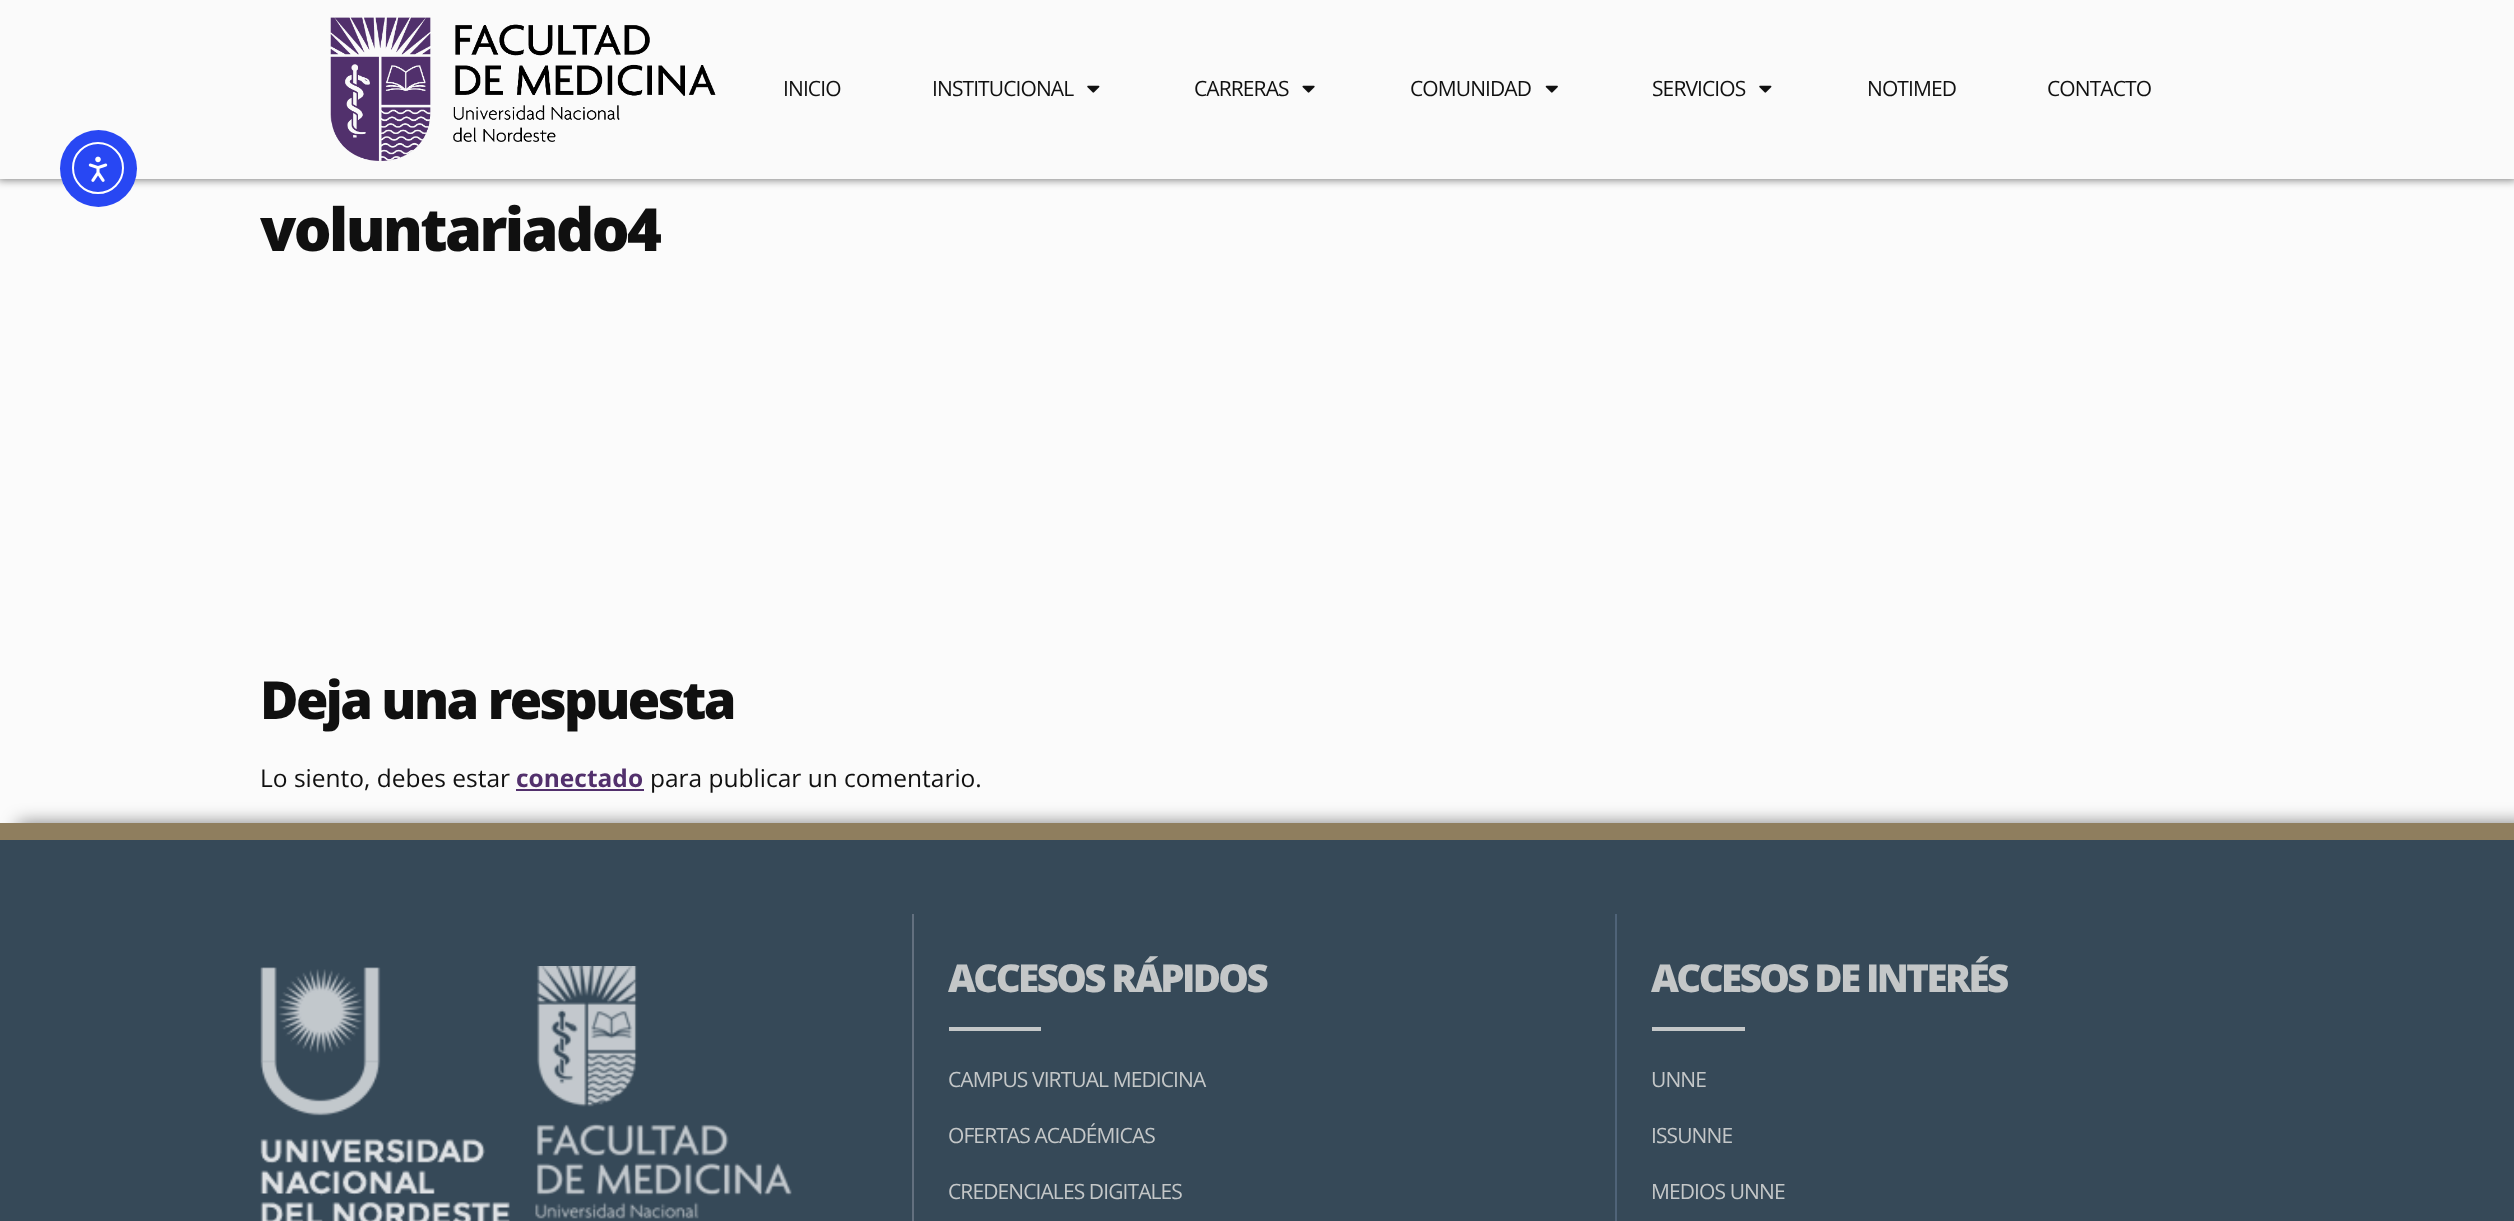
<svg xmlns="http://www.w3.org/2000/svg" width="2514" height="1221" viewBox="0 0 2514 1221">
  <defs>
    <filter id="blur1" x="-50%" y="-200%" width="200%" height="500%"><feGaussianBlur stdDeviation="4.5"/></filter>
    <filter id="blur2" x="-50%" y="-200%" width="200%" height="500%"><feGaussianBlur stdDeviation="9"/></filter>
  </defs>
  <rect width="100%" height="100%" fill="#fbfbfb"/>
  <rect x="-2" y="-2" width="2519" height="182" fill="#000000" fill-opacity="0.5" filter="url(#blur1)"/>
  <rect x="0" y="0" width="2514" height="179" fill="#fafafa"/>
  <image x="330" y="17" width="386" height="144" href="img1.png"/>
  <text x="783" y="96" font-family="Open Sans" font-size="21" letter-spacing="-0.9" fill="#101010">INICIO</text>
  <text x="932" y="96" font-family="Open Sans" font-size="21" letter-spacing="-0.9" fill="#101010">INSTITUCIONAL</text>
  <image x="1087" y="85" width="13" height="8" href="img2.png"/>
  <text x="1194" y="96" font-family="Open Sans" font-size="21" letter-spacing="-0.9" fill="#101010">CARRERAS</text>
  <image x="1302" y="85" width="13" height="8" href="img3.png"/>
  <text x="1410" y="96" font-family="Open Sans" font-size="21" letter-spacing="-0.9" fill="#101010">COMUNIDAD</text>
  <image x="1545" y="85" width="13" height="8" href="img4.png"/>
  <text x="1652" y="96" font-family="Open Sans" font-size="21" letter-spacing="-0.9" fill="#101010">SERVICIOS</text>
  <image x="1759" y="85" width="13" height="8" href="img2.png"/>
  <text x="1867" y="96" font-family="Open Sans" font-size="21" letter-spacing="-0.9" fill="#101010">NOTIMED</text>
  <text x="2047" y="96" font-family="Open Sans" font-size="21" letter-spacing="-0.9" fill="#101010">CONTACTO</text>
  <circle cx="98.5" cy="168.5" r="38.5" fill="#2847f3"/>
  <circle cx="98" cy="168" r="25" fill="none" stroke="#ffffff" stroke-width="2"/>
  <image x="88" y="156" width="20" height="26" href="img5.png"/>
  <text x="260" y="251" font-family="Open Sans" font-size="59.5" font-weight="800" letter-spacing="-2.6" fill="#101010">voluntariado4</text>
  <text x="260" y="719" font-family="Open Sans" font-size="52.5" font-weight="800" letter-spacing="-2.6" fill="#101010">Deja una respuesta</text>
  <text x="260" y="787" font-family="Open Sans" font-size="24.5" fill="#101010">Lo siento, debes estar</text>
  <text x="516" y="787" font-family="Open Sans" font-size="24.5" font-weight="bold" fill="#52306c">conectado</text>
  <rect x="516" y="789" width="128" height="2" fill="#52306c"/>
  <text x="650" y="787" font-family="Open Sans" font-size="24.5" fill="#101010">para publicar un comentario.</text>
  <rect x="18" y="823" width="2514" height="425" fill="#000000" fill-opacity="0.5" filter="url(#blur2)"/>
  <rect x="0" y="840" width="2514" height="381" fill="#364958"/>
  <rect x="0" y="823" width="2514" height="17" fill="#8f7e5e"/>
  <image x="260" y="967" width="250" height="254" href="img6.png"/>
  <image x="535" y="966" width="257" height="253" href="img7.png"/>
  <rect x="912" y="914" width="2" height="307" fill="#63707f"/>
  <text x="948" y="992" font-family="Open Sans" font-size="38.5" font-weight="800" letter-spacing="-2.6" fill="#c4c7c8">ACCESOS RÁPIDOS</text>
  <rect x="949" y="1027" width="92" height="4" fill="#c4c7c8"/>
  <text x="948" y="1087" font-family="Open Sans" font-size="21" letter-spacing="-0.9" fill="#c4c7c8">CAMPUS VIRTUAL MEDICINA</text>
  <text x="948" y="1143" font-family="Open Sans" font-size="21" letter-spacing="-0.9" fill="#c4c7c8">OFERTAS ACADÉMICAS</text>
  <text x="948" y="1199" font-family="Open Sans" font-size="21" letter-spacing="-0.9" fill="#c4c7c8">CREDENCIALES DIGITALES</text>
  <rect x="1615" y="914" width="2" height="307" fill="#4f6378"/>
  <text x="1651" y="992" font-family="Open Sans" font-size="38.5" font-weight="800" letter-spacing="-2.6" fill="#c4c7c8">ACCESOS DE INTERÉS</text>
  <rect x="1652" y="1027" width="93" height="4" fill="#c4c7c8"/>
  <text x="1651" y="1087" font-family="Open Sans" font-size="21" letter-spacing="-0.9" fill="#c4c7c8">UNNE</text>
  <text x="1651" y="1143" font-family="Open Sans" font-size="21" letter-spacing="-0.9" fill="#c4c7c8">ISSUNNE</text>
  <text x="1651" y="1199" font-family="Open Sans" font-size="21" letter-spacing="-0.9" fill="#c4c7c8">MEDIOS UNNE</text>
</svg>
